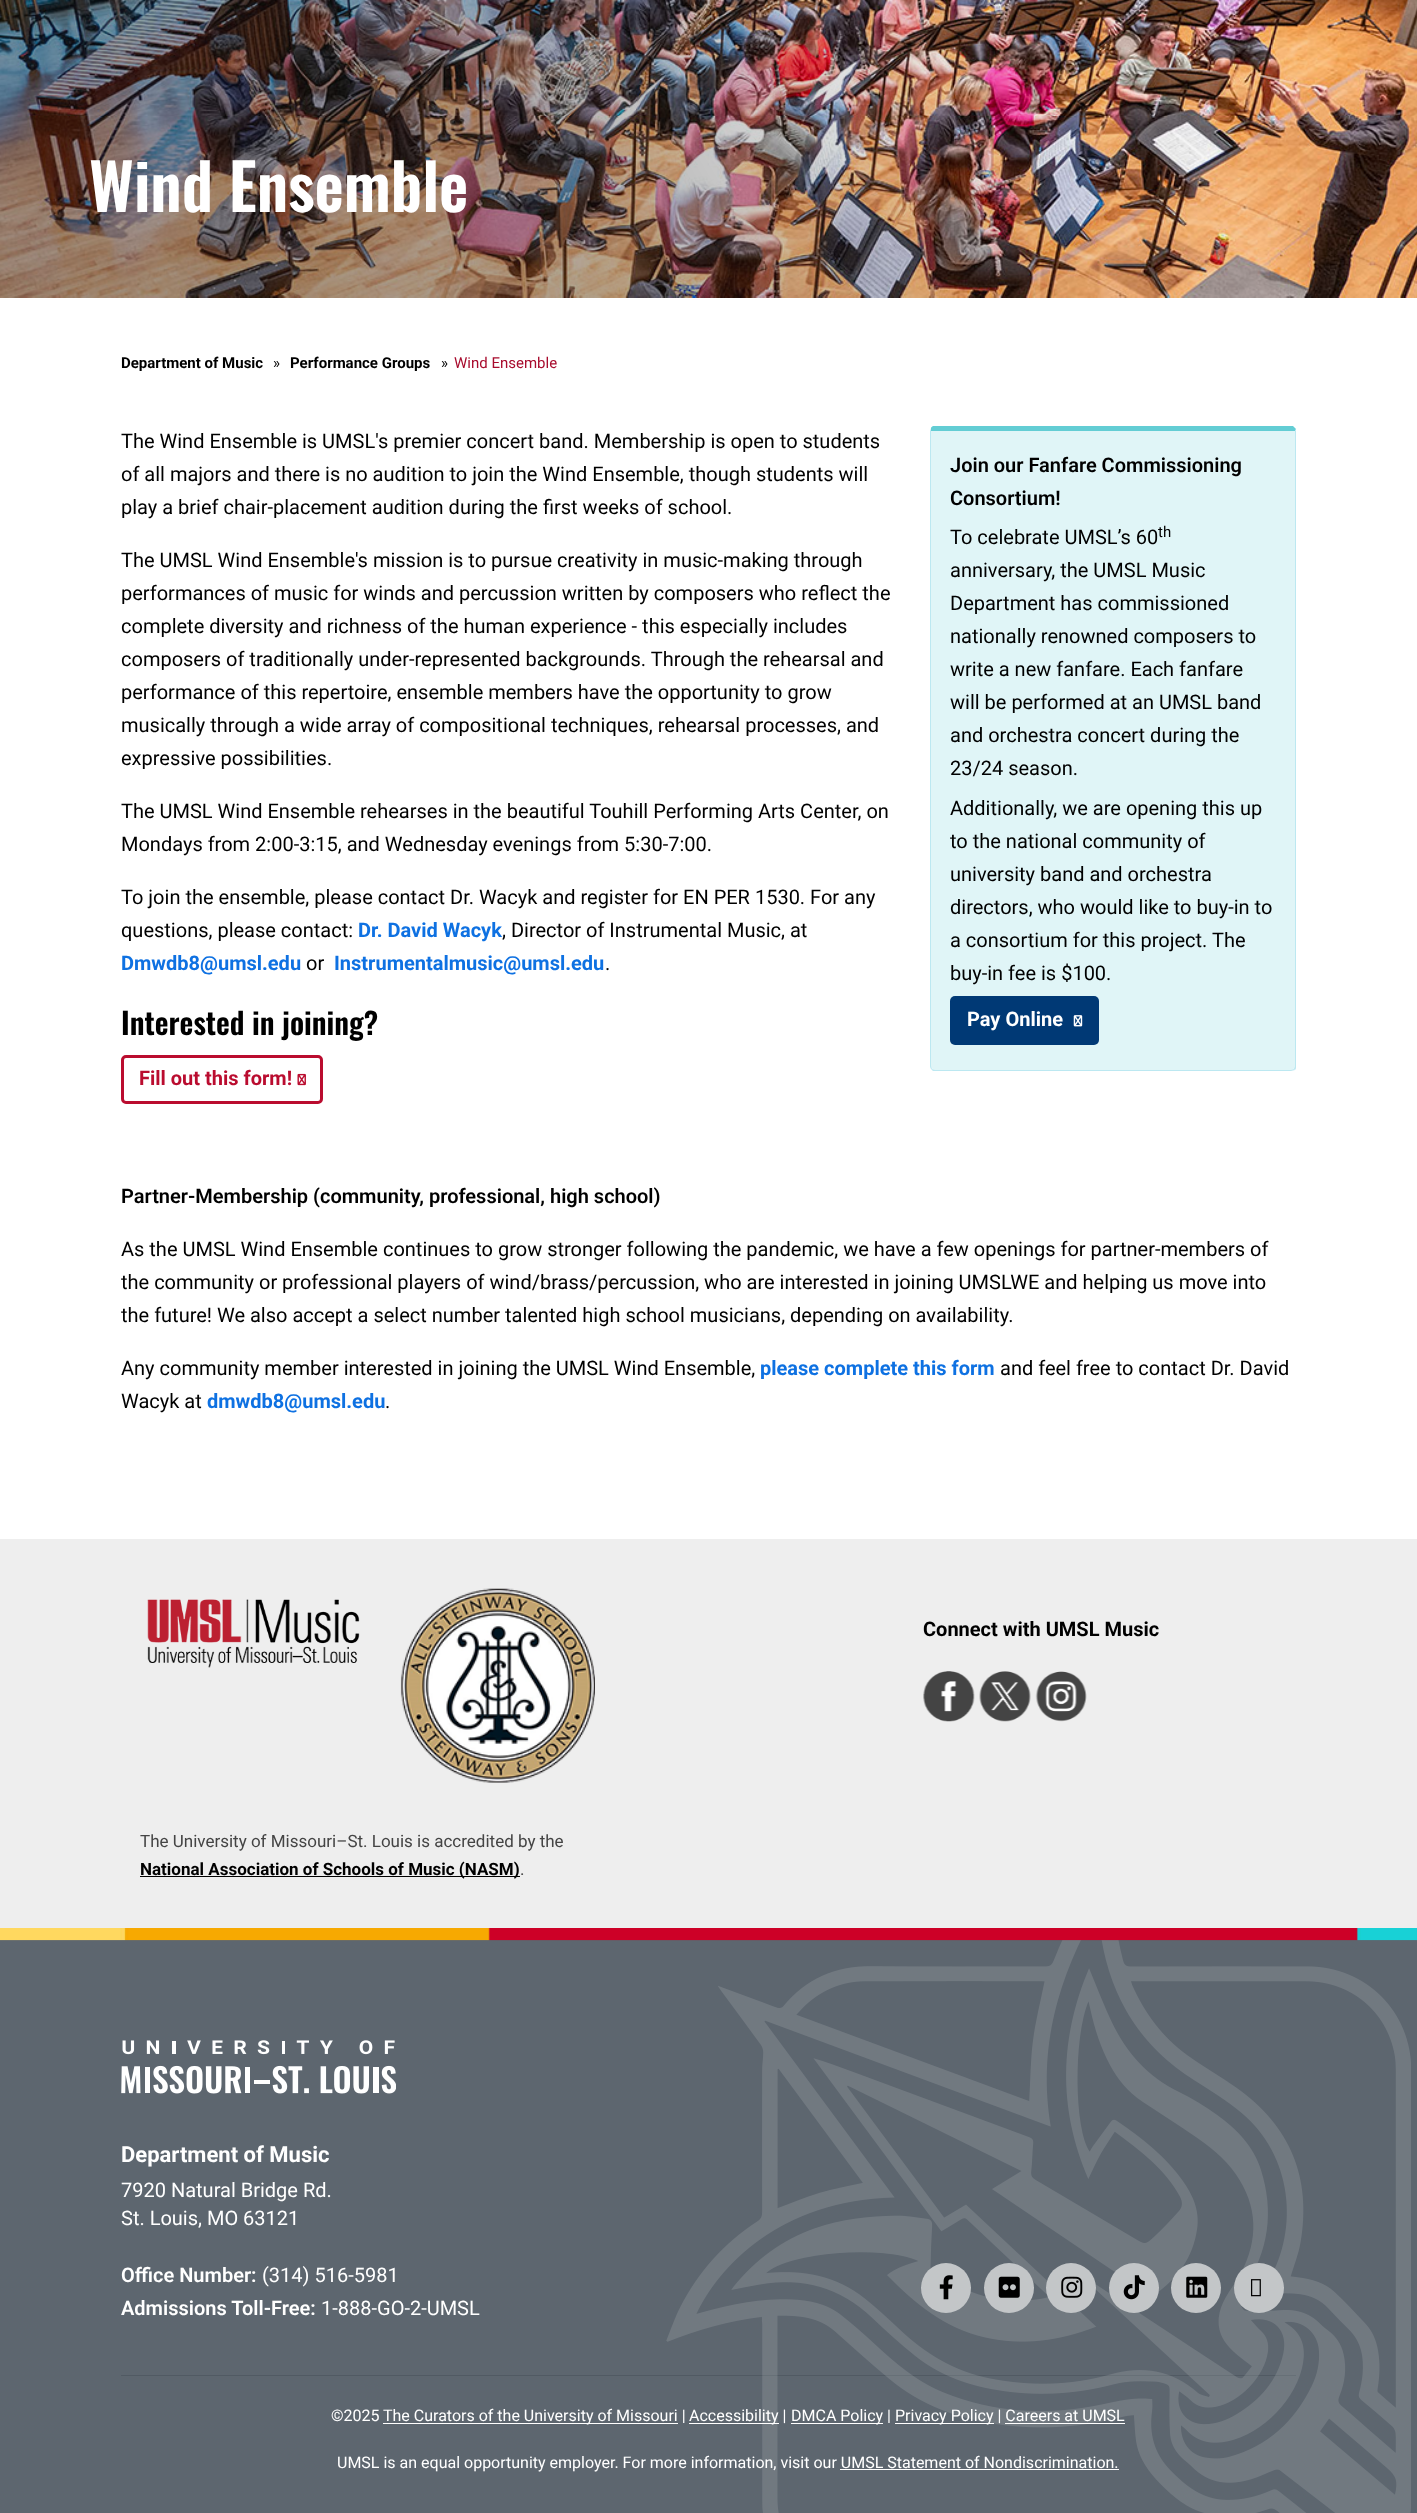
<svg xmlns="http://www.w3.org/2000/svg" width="1417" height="2513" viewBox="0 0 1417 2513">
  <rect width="100%" height="100%" fill="#ffffff"/>
  <image x="0" y="0" width="1417" height="298" href="img1.png"/>
  <text x="89" y="212" font-family="Oswald" font-size="63.75" font-weight="600" fill="#ffffff">Wind Ensemble</text>
  <text x="121" y="368" font-family="Roboto" font-size="15" font-weight="bold" fill="#000000">Department of Music</text>
  <text x="273" y="368" font-family="Roboto" font-size="15" fill="#000000">»</text>
  <text x="290" y="368" font-family="Roboto" font-size="15" font-weight="bold" fill="#000000">Performance Groups</text>
  <text x="441" y="368" font-family="Roboto" font-size="15" fill="#000000">»</text>
  <text x="454" y="368" font-family="Roboto" font-size="15" fill="#a80b2d">Wind Ensemble</text>
  <text x="121" y="448" font-family="Roboto" font-size="20" fill="#000000">The Wind Ensemble is UMSL's premier concert band. Membership is open to students</text>
  <text x="121" y="481" font-family="Roboto" font-size="20" fill="#000000">of all majors and there is no audition to join the Wind Ensemble, though students will</text>
  <text x="121" y="514" font-family="Roboto" font-size="20" fill="#000000">play a brief chair-placement audition during the first weeks of school.</text>
  <text x="121" y="567" font-family="Roboto" font-size="20" fill="#000000">The UMSL Wind Ensemble's mission is to pursue creativity in music-making through</text>
  <text x="121" y="600" font-family="Roboto" font-size="20" fill="#000000">performances of music for winds and percussion written by composers who reflect the</text>
  <text x="121" y="633" font-family="Roboto" font-size="20" fill="#000000">complete diversity and richness of the human experience - this especially includes</text>
  <text x="121" y="666" font-family="Roboto" font-size="20" fill="#000000">composers of traditionally under-represented backgrounds. Through the rehearsal and</text>
  <text x="121" y="699" font-family="Roboto" font-size="20" fill="#000000">performance of this repertoire, ensemble members have the opportunity to grow</text>
  <text x="121" y="732" font-family="Roboto" font-size="20" fill="#000000">musically through a wide array of compositional techniques, rehearsal processes, and</text>
  <text x="121" y="765" font-family="Roboto" font-size="20" fill="#000000">expressive possibilities.</text>
  <text x="121" y="818" font-family="Roboto" font-size="20" fill="#000000">The UMSL Wind Ensemble rehearses in the beautiful Touhill Performing Arts Center, on</text>
  <text x="121" y="851" font-family="Roboto" font-size="20" fill="#000000">Mondays from 2:00-3:15, and Wednesday evenings from 5:30-7:00.</text>
  <text x="121" y="904" font-family="Roboto" font-size="20" fill="#000000">To join the ensemble, please contact Dr. Wacyk and register for EN PER 1530. For any</text>
  <text x="121" y="937" font-family="Roboto" font-size="20" fill="#000000">questions, please contact:</text>
  <text x="358" y="937" font-family="Roboto" font-size="20" font-weight="bold" fill="#0e71e2">Dr. David Wacyk</text>
  <text x="502" y="937" font-family="Roboto" font-size="20" fill="#000000">, Director of Instrumental Music, at</text>
  <text x="121" y="970" font-family="Roboto" font-size="20" font-weight="bold" fill="#0e71e2">Dmwdb8@umsl.edu</text>
  <text x="306" y="970" font-family="Roboto" font-size="20" fill="#000000">or</text>
  <text x="334" y="970" font-family="Roboto" font-size="20" font-weight="bold" fill="#0e71e2">Instrumentalmusic@umsl.edu</text>
  <text x="605" y="970" font-family="Roboto" font-size="20" fill="#000000">.</text>
  <text x="121" y="1035" font-family="Oswald" font-size="30" font-weight="600" fill="#000000">Interested in joining?</text>
  <rect x="122.5" y="1056.5" width="199" height="46" rx="3.5" fill="none" stroke="#ba0c2f" stroke-width="3"/>
  <text x="139" y="1085" font-family="Roboto" font-size="20" font-weight="bold" fill="#ba0c2f">Fill out this form!</text>
  <image x="297" y="1073" width="9" height="13" href="img2.png"/>
  <path d="M935 431H1295V1066C1295 1068 1293 1070 1291 1070H935C933 1070 931 1068 931 1066V431Z" fill="#e0f5f7"/>
  <path d="M931 428C931 427 932 427 933 426H1293C1294 427 1295 428 1296 429L1295 431H931Z" fill="#63cdd4"/>
  <path d="M1296 429V431V1066C1296 1068 1296 1069 1295 1070L1294 1069C1294 1068 1295 1067 1295 1066V431Z" fill="#bce8f1"/>
  <path d="M1295 1070C1294 1070 1292 1071 1291 1071H935C934 1071 932 1071 932 1070V1069L935 1070H1291L1294 1069Z" fill="#bce8f1"/>
  <path d="M930 431V1066C930 1068 931 1069 932 1070V1069L931 1066V431V428Z" fill="#bce8f1"/>
  <text x="950" y="472" font-family="Roboto" font-size="20" font-weight="600" fill="#000000">Join our Fanfare Commissioning</text>
  <text x="950" y="505" font-family="Roboto" font-size="20" font-weight="600" fill="#000000">Consortium!</text>
  <text x="950" y="544" font-family="Roboto" font-size="20" fill="#000000">To celebrate UMSL’s 60</text>
  <text x="1158" y="537" font-family="Roboto" font-size="15" fill="#000000">th</text>
  <text x="950" y="577" font-family="Roboto" font-size="20" fill="#000000">anniversary, the UMSL Music</text>
  <text x="950" y="610" font-family="Roboto" font-size="20" fill="#000000">Department has commissioned</text>
  <text x="950" y="643" font-family="Roboto" font-size="20" fill="#000000">nationally renowned composers to</text>
  <text x="950" y="676" font-family="Roboto" font-size="20" fill="#000000">write a new fanfare. Each fanfare</text>
  <text x="950" y="709" font-family="Roboto" font-size="20" fill="#000000">will be performed at an UMSL band</text>
  <text x="950" y="742" font-family="Roboto" font-size="20" fill="#000000">and orchestra concert during the</text>
  <text x="950" y="775" font-family="Roboto" font-size="20" fill="#000000">23/24 season.</text>
  <text x="950" y="815" font-family="Roboto" font-size="20" fill="#000000">Additionally, we are opening this up</text>
  <text x="950" y="848" font-family="Roboto" font-size="20" fill="#000000">to the national community of</text>
  <text x="950" y="881" font-family="Roboto" font-size="20" fill="#000000">university band and orchestra</text>
  <text x="950" y="914" font-family="Roboto" font-size="20" fill="#000000">directors, who would like to buy-in to</text>
  <text x="950" y="947" font-family="Roboto" font-size="20" fill="#000000">a consortium for this project. The</text>
  <text x="950" y="980" font-family="Roboto" font-size="20" fill="#000000">buy-in fee is $100.</text>
  <rect x="950" y="996" width="149" height="49" rx="5" fill="#003975"/>
  <text x="967" y="1026" font-family="Roboto" font-size="20" font-weight="bold" fill="#ffffff">Pay Online</text>
  <image x="1073" y="1015" width="10" height="12" href="img3.png"/>
  <text x="121" y="1203" font-family="Roboto" font-size="20" font-weight="600" fill="#000000">Partner-Membership (community, professional, high school)</text>
  <text x="121" y="1256" font-family="Roboto" font-size="20" fill="#000000">As the UMSL Wind Ensemble continues to grow stronger following the pandemic, we have a few openings for partner-members of</text>
  <text x="121" y="1289" font-family="Roboto" font-size="20" fill="#000000">the community or professional players of wind/brass/percussion, who are interested in joining UMSLWE and helping us move into</text>
  <text x="121" y="1322" font-family="Roboto" font-size="20" fill="#000000">the future! We also accept a select number talented high school musicians, depending on availability.</text>
  <text x="121" y="1375" font-family="Roboto" font-size="20" fill="#000000">Any community member interested in joining the UMSL Wind Ensemble,</text>
  <text x="760" y="1375" font-family="Roboto" font-size="20" font-weight="bold" fill="#0e71e2">please complete this form</text>
  <text x="1000" y="1375" font-family="Roboto" font-size="20" fill="#000000">and feel free to contact Dr. David</text>
  <text x="121" y="1408" font-family="Roboto" font-size="20" fill="#000000">Wacyk at</text>
  <text x="207" y="1408" font-family="Roboto" font-size="20" font-weight="bold" fill="#0e71e2">dmwdb8@umsl.edu</text>
  <text x="385" y="1408" font-family="Roboto" font-size="20" fill="#000000">.</text>
  <rect x="0" y="1539" width="1417" height="389" fill="#eeeeee"/>
  <text x="923" y="1636" font-family="Roboto" font-size="20" font-weight="bold" fill="#000000">Connect with UMSL Music</text>
  <image x="923" y="1671" width="52" height="51" href="img4.png"/>
  <image x="979" y="1671" width="52" height="51" href="img5.png"/>
  <image x="1035" y="1671" width="52" height="51" href="img6.png"/>
  <image x="147" y="1599" width="213" height="69" href="img7.png"/>
  <image x="400" y="1588" width="195" height="195" href="img8.png"/>
  <text x="140" y="1847" font-family="Roboto" font-size="17" fill="#444444">The University of Missouri–St. Louis is accredited by the</text>
  <rect x="140" y="1876" width="380" height="1" fill="#000000"/>
  <text x="140" y="1875" font-family="Roboto" font-size="17" font-weight="bold" fill="#000000">National Association of Schools of Music (NASM)</text>
  <text x="520" y="1875" font-family="Roboto" font-size="17" fill="#444444">.</text>
  <rect x="0" y="1928" width="1417" height="585" fill="#5d666f"/>
  <rect x="121" y="2375" width="1175" height="1" fill="#515a63"/>
  <image x="666" y="1940" width="745" height="573" href="img17.png"/>
  <image x="0" y="1928" width="1417" height="13" href="img9.png"/>
  <image x="121" y="2040" width="275" height="54" href="img10.png"/>
  <text x="121" y="2162" font-family="Roboto" font-size="22" font-weight="bold" fill="#ffffff">Department of Music</text>
  <text x="121" y="2197" font-family="Roboto" font-size="20" fill="#ffffff">7920 Natural Bridge Rd.</text>
  <text x="121" y="2225" font-family="Roboto" font-size="20" fill="#ffffff">St. Louis, MO 63121</text>
  <text x="121" y="2282" font-family="Roboto" font-size="20" font-weight="600" fill="#ffffff">Office Number:</text>
  <text x="262" y="2282" font-family="Roboto" font-size="20" fill="#ffffff">(314) 516-5981</text>
  <text x="121" y="2315" font-family="Roboto" font-size="20" font-weight="600" fill="#ffffff">Admissions Toll-Free:</text>
  <text x="321" y="2315" font-family="Roboto" font-size="20" fill="#ffffff">1-888-GO-2-UMSL</text>
  <circle cx="946" cy="2288" r="25" fill="#c3c6c8"/>
  <image x="939" y="2275" width="14" height="25" href="img11.png"/>
  <circle cx="1009" cy="2288" r="25" fill="#c3c6c8"/>
  <image x="998" y="2276" width="22" height="22" href="img12.png"/>
  <circle cx="1071" cy="2288" r="25" fill="#c3c6c8"/>
  <image x="1061" y="2276" width="22" height="22" href="img13.png"/>
  <circle cx="1134" cy="2288" r="25" fill="#c3c6c8"/>
  <image x="1123" y="2275" width="22" height="25" href="img14.png"/>
  <circle cx="1196" cy="2288" r="25" fill="#c3c6c8"/>
  <image x="1186" y="2276" width="22" height="22" href="img15.png"/>
  <circle cx="1259" cy="2288" r="25" fill="#c3c6c8"/>
  <image x="1251" y="2279" width="10" height="18" href="img16.png"/>
  <text x="331" y="2421" font-family="Roboto" font-size="16" fill="#ffffff">©2025</text>
  <rect x="383" y="2423" width="295" height="1" fill="#ffffff"/>
  <text x="383" y="2421" font-family="Roboto" font-size="16" fill="#ffffff">The Curators of the University of Missouri |</text>
  <rect x="689" y="2423" width="90" height="1" fill="#ffffff"/>
  <text x="689" y="2421" font-family="Roboto" font-size="16" fill="#ffffff">Accessibility |</text>
  <rect x="791" y="2423" width="92" height="1" fill="#ffffff"/>
  <text x="791" y="2421" font-family="Roboto" font-size="16" fill="#ffffff">DMCA Policy |</text>
  <rect x="895" y="2423" width="99" height="1" fill="#ffffff"/>
  <text x="895" y="2421" font-family="Roboto" font-size="16" fill="#ffffff">Privacy Policy | Careers at UMSL</text>
  <rect x="1005" y="2423" width="120" height="1" fill="#ffffff"/>
  <text x="337" y="2468" font-family="Roboto" font-size="16" fill="#ffffff">UMSL is an equal opportunity employer. For more information, visit our UMSL Statement of Nondiscrimination.</text>
  <rect x="840" y="2469" width="279" height="1" fill="#ffffff"/>
</svg>
